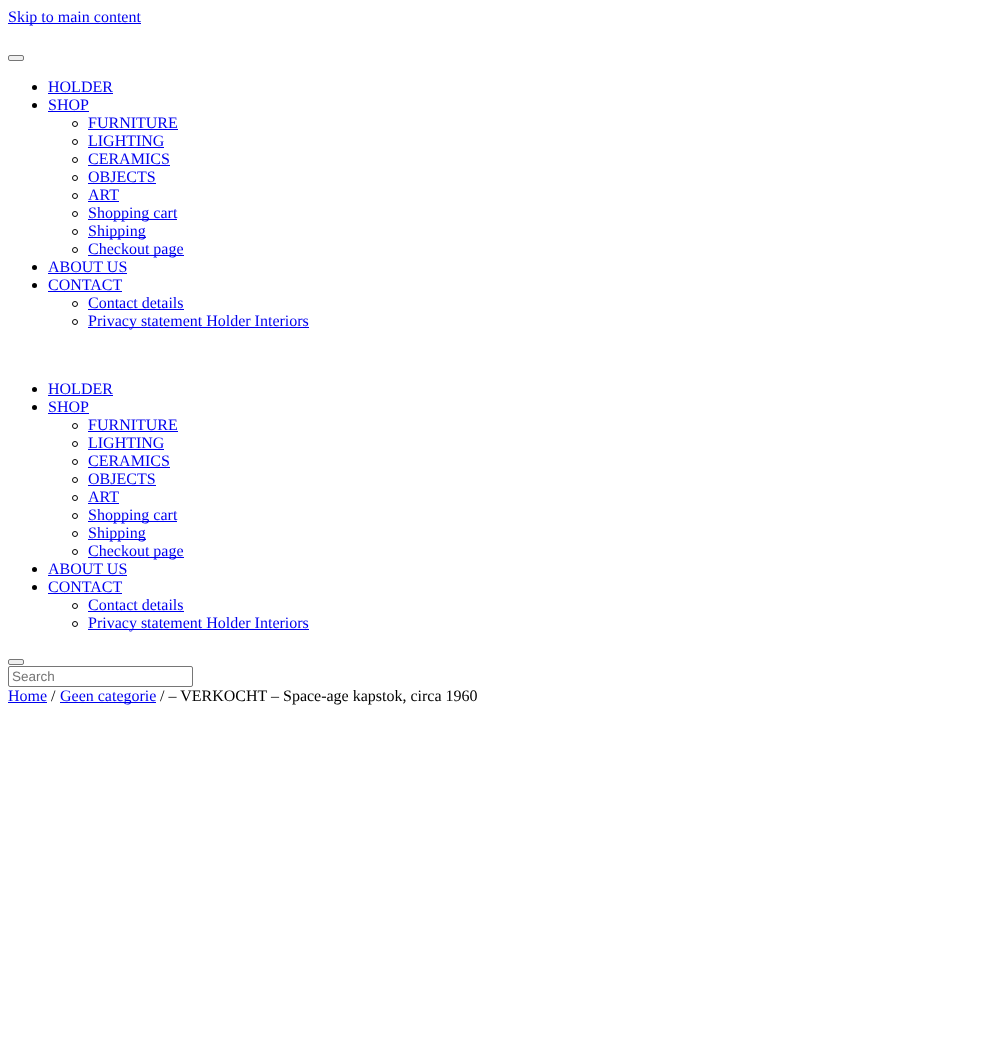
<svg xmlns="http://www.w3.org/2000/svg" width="981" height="1057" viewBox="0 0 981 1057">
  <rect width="100%" height="100%" fill="#ffffff"/>
  <rect x="8" y="23" width="133" height="1" fill="#0000ee"/>
  <text x="8" y="22" font-family="Liberation Serif" font-size="16" fill="#0000ee">Skip to main content</text>
  <rect x="8.5" y="55.5" width="15" height="5" rx="1.5" fill="#efefef" stroke="#767676"/>
  <circle cx="34.5" cy="87.5" r="2.5" fill="#000000"/>
  <text x="48" y="92" font-family="Liberation Serif" font-size="16" fill="#0000ee">HOLDER</text>
  <rect x="48" y="93" width="65" height="1" fill="#0000ee"/>
  <circle cx="34.5" cy="105.5" r="2.5" fill="#000000"/>
  <text x="48" y="110" font-family="Liberation Serif" font-size="16" fill="#0000ee">SHOP</text>
  <rect x="48" y="111" width="41" height="1" fill="#0000ee"/>
  <circle cx="75" cy="124" r="2.5" fill="none" stroke="#000000"/>
  <text x="88" y="128" font-family="Liberation Serif" font-size="16" fill="#0000ee">FURNITURE</text>
  <rect x="88" y="129" width="90" height="1" fill="#0000ee"/>
  <circle cx="75" cy="142" r="2.5" fill="none" stroke="#000000"/>
  <text x="88" y="146" font-family="Liberation Serif" font-size="16" fill="#0000ee">LIGHTING</text>
  <rect x="88" y="147" width="76" height="1" fill="#0000ee"/>
  <circle cx="75" cy="160" r="2.5" fill="none" stroke="#000000"/>
  <text x="88" y="164" font-family="Liberation Serif" font-size="16" fill="#0000ee">CERAMICS</text>
  <rect x="88" y="165" width="82" height="1" fill="#0000ee"/>
  <circle cx="75" cy="178" r="2.5" fill="none" stroke="#000000"/>
  <text x="88" y="182" font-family="Liberation Serif" font-size="16" fill="#0000ee">OBJECTS</text>
  <rect x="88" y="183" width="68" height="1" fill="#0000ee"/>
  <circle cx="75" cy="196" r="2.5" fill="none" stroke="#000000"/>
  <text x="88" y="200" font-family="Liberation Serif" font-size="16" fill="#0000ee">ART</text>
  <rect x="88" y="201" width="31" height="1" fill="#0000ee"/>
  <circle cx="75" cy="214" r="2.5" fill="none" stroke="#000000"/>
  <rect x="88" y="219" width="89" height="1" fill="#0000ee"/>
  <text x="88" y="218" font-family="Liberation Serif" font-size="16" fill="#0000ee">Shopping cart</text>
  <circle cx="75" cy="232" r="2.5" fill="none" stroke="#000000"/>
  <rect x="88" y="237" width="58" height="1" fill="#0000ee"/>
  <text x="88" y="236" font-family="Liberation Serif" font-size="16" fill="#0000ee">Shipping</text>
  <circle cx="75" cy="250" r="2.5" fill="none" stroke="#000000"/>
  <rect x="88" y="255" width="96" height="1" fill="#0000ee"/>
  <text x="88" y="254" font-family="Liberation Serif" font-size="16" fill="#0000ee">Checkout page</text>
  <circle cx="34.5" cy="267.5" r="2.5" fill="#000000"/>
  <text x="48" y="272" font-family="Liberation Serif" font-size="16" fill="#0000ee">ABOUT US</text>
  <rect x="48" y="273" width="79" height="1" fill="#0000ee"/>
  <circle cx="34.5" cy="285.5" r="2.5" fill="#000000"/>
  <text x="48" y="290" font-family="Liberation Serif" font-size="16" fill="#0000ee">CONTACT</text>
  <rect x="48" y="291" width="74" height="1" fill="#0000ee"/>
  <circle cx="75" cy="304" r="2.5" fill="none" stroke="#000000"/>
  <text x="88" y="308" font-family="Liberation Serif" font-size="16" fill="#0000ee">Contact details</text>
  <rect x="88" y="309" width="96" height="1" fill="#0000ee"/>
  <circle cx="75" cy="322" r="2.5" fill="none" stroke="#000000"/>
  <rect x="88" y="327" width="221" height="1" fill="#0000ee"/>
  <text x="88" y="326" font-family="Liberation Serif" font-size="16" fill="#0000ee">Privacy statement Holder Interiors</text>
  <circle cx="34.5" cy="389.5" r="2.5" fill="#000000"/>
  <text x="48" y="394" font-family="Liberation Serif" font-size="16" fill="#0000ee">HOLDER</text>
  <rect x="48" y="395" width="65" height="1" fill="#0000ee"/>
  <circle cx="34.5" cy="407.5" r="2.5" fill="#000000"/>
  <text x="48" y="412" font-family="Liberation Serif" font-size="16" fill="#0000ee">SHOP</text>
  <rect x="48" y="413" width="41" height="1" fill="#0000ee"/>
  <circle cx="75" cy="426" r="2.5" fill="none" stroke="#000000"/>
  <text x="88" y="430" font-family="Liberation Serif" font-size="16" fill="#0000ee">FURNITURE</text>
  <rect x="88" y="431" width="90" height="1" fill="#0000ee"/>
  <circle cx="75" cy="444" r="2.5" fill="none" stroke="#000000"/>
  <text x="88" y="448" font-family="Liberation Serif" font-size="16" fill="#0000ee">LIGHTING</text>
  <rect x="88" y="449" width="76" height="1" fill="#0000ee"/>
  <circle cx="75" cy="462" r="2.5" fill="none" stroke="#000000"/>
  <text x="88" y="466" font-family="Liberation Serif" font-size="16" fill="#0000ee">CERAMICS</text>
  <rect x="88" y="467" width="82" height="1" fill="#0000ee"/>
  <circle cx="75" cy="480" r="2.5" fill="none" stroke="#000000"/>
  <text x="88" y="484" font-family="Liberation Serif" font-size="16" fill="#0000ee">OBJECTS</text>
  <rect x="88" y="485" width="68" height="1" fill="#0000ee"/>
  <circle cx="75" cy="498" r="2.5" fill="none" stroke="#000000"/>
  <text x="88" y="502" font-family="Liberation Serif" font-size="16" fill="#0000ee">ART</text>
  <rect x="88" y="503" width="31" height="1" fill="#0000ee"/>
  <circle cx="75" cy="516" r="2.5" fill="none" stroke="#000000"/>
  <rect x="88" y="521" width="89" height="1" fill="#0000ee"/>
  <text x="88" y="520" font-family="Liberation Serif" font-size="16" fill="#0000ee">Shopping cart</text>
  <circle cx="75" cy="534" r="2.5" fill="none" stroke="#000000"/>
  <rect x="88" y="539" width="58" height="1" fill="#0000ee"/>
  <text x="88" y="538" font-family="Liberation Serif" font-size="16" fill="#0000ee">Shipping</text>
  <circle cx="75" cy="552" r="2.5" fill="none" stroke="#000000"/>
  <rect x="88" y="557" width="96" height="1" fill="#0000ee"/>
  <text x="88" y="556" font-family="Liberation Serif" font-size="16" fill="#0000ee">Checkout page</text>
  <circle cx="34.5" cy="569.5" r="2.5" fill="#000000"/>
  <text x="48" y="574" font-family="Liberation Serif" font-size="16" fill="#0000ee">ABOUT US</text>
  <rect x="48" y="575" width="79" height="1" fill="#0000ee"/>
  <circle cx="34.5" cy="587.5" r="2.5" fill="#000000"/>
  <text x="48" y="592" font-family="Liberation Serif" font-size="16" fill="#0000ee">CONTACT</text>
  <rect x="48" y="593" width="74" height="1" fill="#0000ee"/>
  <circle cx="75" cy="606" r="2.5" fill="none" stroke="#000000"/>
  <text x="88" y="610" font-family="Liberation Serif" font-size="16" fill="#0000ee">Contact details</text>
  <rect x="88" y="611" width="96" height="1" fill="#0000ee"/>
  <circle cx="75" cy="624" r="2.5" fill="none" stroke="#000000"/>
  <rect x="88" y="629" width="221" height="1" fill="#0000ee"/>
  <text x="88" y="628" font-family="Liberation Serif" font-size="16" fill="#0000ee">Privacy statement Holder Interiors</text>
  <rect x="8.5" y="659.5" width="15" height="5" rx="1.5" fill="#efefef" stroke="#767676"/>
  <rect x="8.5" y="666.5" width="184" height="20" rx="1.5" fill="none" stroke="#767676"/>
  <text x="12" y="681" font-family="Liberation Sans" font-size="13.5" fill="#757575">Search</text>
  <text x="8" y="701" font-family="Liberation Serif" font-size="16" fill="#0000ee">Home</text>
  <rect x="8" y="702" width="39" height="1" fill="#0000ee"/>
  <text x="51" y="701" font-family="Liberation Serif" font-size="16" fill="#000000">/</text>
  <rect x="60" y="702" width="96" height="1" fill="#0000ee"/>
  <text x="60" y="701" font-family="Liberation Serif" font-size="16" fill="#0000ee">Geen categorie</text>
  <text x="160" y="701" font-family="Liberation Serif" font-size="16" fill="#000000">/ – VERKOCHT – Space-age kapstok, circa 1960</text>
</svg>
